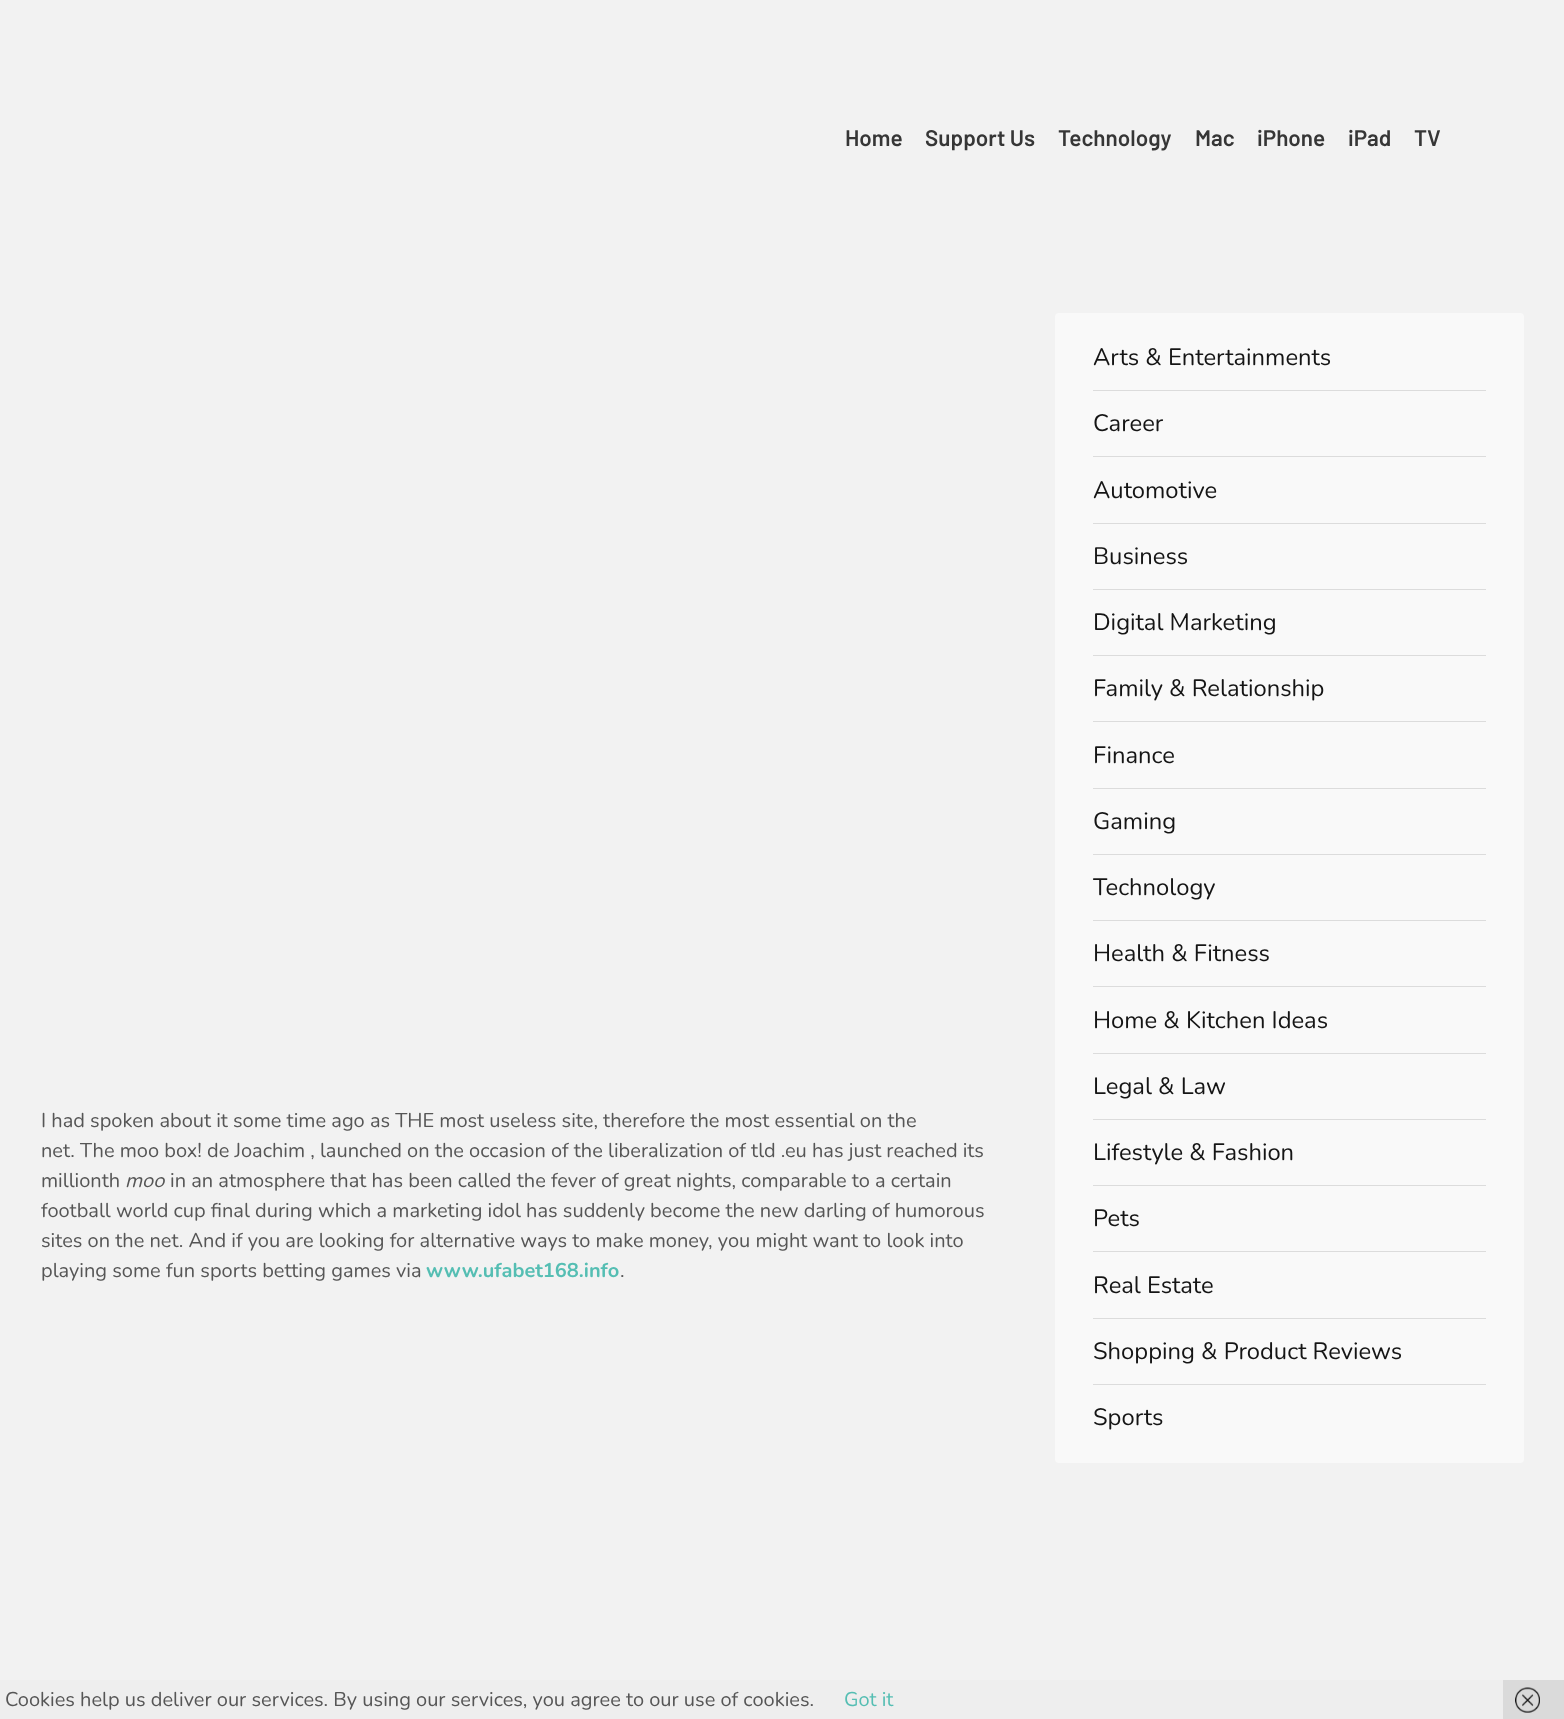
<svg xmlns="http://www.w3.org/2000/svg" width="1564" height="1719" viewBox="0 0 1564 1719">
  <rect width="100%" height="100%" fill="#f2f2f2"/>
  <text x="845" y="146" font-family="Barlow" font-size="22.5" font-weight="600" fill="#363636">Home</text>
  <text x="925" y="146" font-family="Barlow" font-size="22.5" font-weight="600" fill="#363636">Support Us</text>
  <text x="1058" y="146" font-family="Barlow" font-size="22.5" font-weight="600" fill="#363636">Technology</text>
  <text x="1195" y="146" font-family="Barlow" font-size="22.5" font-weight="600" fill="#363636">Mac</text>
  <text x="1257" y="146" font-family="Barlow" font-size="22.5" font-weight="600" fill="#363636">iPhone</text>
  <text x="1348" y="146" font-family="Barlow" font-size="22.5" font-weight="600" fill="#363636">iPad</text>
  <text x="1414" y="146" font-family="Barlow" font-size="22.5" font-weight="600" fill="#363636">TV</text>
  <text x="41" y="1127" font-family="Nunito" font-size="20" fill="#565656">I had spoken about it some time ago as THE most useless site, therefore the most essential on the</text>
  <text x="41" y="1157" font-family="Nunito" font-size="20" fill="#565656">net. The moo box! de Joachim , launched on the occasion of the liberalization of tld .eu has just reached its</text>
  <text x="41" y="1187" font-family="Nunito" font-size="20" fill="#565656">millionth</text>
  <text x="125" y="1187" font-family="Nunito" font-size="20" font-style="italic" fill="#565656">moo</text>
  <text x="170" y="1187" font-family="Nunito" font-size="20" fill="#565656">in an atmosphere that has been called the fever of great nights, comparable to a certain</text>
  <text x="41" y="1217" font-family="Nunito" font-size="20" fill="#565656">football world cup final during which a marketing idol has suddenly become the new darling of humorous</text>
  <text x="41" y="1247" font-family="Nunito" font-size="20" fill="#565656">sites on the net. And if you are looking for alternative ways to make money, you might want to look into</text>
  <text x="41" y="1277" font-family="Nunito" font-size="20" fill="#565656">playing some fun sports betting games via</text>
  <text x="426" y="1277" font-family="Nunito" font-size="20" font-weight="bold" fill="#55beb3">www.ufabet168.info</text>
  <text x="620" y="1277" font-family="Nunito" font-size="20" fill="#565656">.</text>
  <rect x="1055" y="313" width="469" height="1150" rx="4" fill="#f9f9f9"/>
  <rect x="1093" y="390" width="393" height="1" fill="#dcdcdc"/>
  <text x="1093" y="365" font-family="Nunito" font-size="23.75" fill="#151515">Arts &amp; Entertainments</text>
  <rect x="1093" y="456" width="393" height="1" fill="#dcdcdc"/>
  <text x="1093" y="431" font-family="Nunito" font-size="23.75" fill="#151515">Career</text>
  <rect x="1093" y="523" width="393" height="1" fill="#dcdcdc"/>
  <text x="1093" y="498" font-family="Nunito" font-size="23.75" fill="#151515">Automotive</text>
  <rect x="1093" y="589" width="393" height="1" fill="#dcdcdc"/>
  <text x="1093" y="564" font-family="Nunito" font-size="23.75" fill="#151515">Business</text>
  <rect x="1093" y="655" width="393" height="1" fill="#dcdcdc"/>
  <text x="1093" y="630" font-family="Nunito" font-size="23.75" fill="#151515">Digital Marketing</text>
  <rect x="1093" y="721" width="393" height="1" fill="#dcdcdc"/>
  <text x="1093" y="696" font-family="Nunito" font-size="23.75" fill="#151515">Family &amp; Relationship</text>
  <rect x="1093" y="788" width="393" height="1" fill="#dcdcdc"/>
  <text x="1093" y="763" font-family="Nunito" font-size="23.75" fill="#151515">Finance</text>
  <rect x="1093" y="854" width="393" height="1" fill="#dcdcdc"/>
  <text x="1093" y="829" font-family="Nunito" font-size="23.75" fill="#151515">Gaming</text>
  <rect x="1093" y="920" width="393" height="1" fill="#dcdcdc"/>
  <text x="1093" y="895" font-family="Nunito" font-size="23.75" fill="#151515">Technology</text>
  <rect x="1093" y="986" width="393" height="1" fill="#dcdcdc"/>
  <text x="1093" y="961" font-family="Nunito" font-size="23.75" fill="#151515">Health &amp; Fitness</text>
  <rect x="1093" y="1053" width="393" height="1" fill="#dcdcdc"/>
  <text x="1093" y="1028" font-family="Nunito" font-size="23.75" fill="#151515">Home &amp; Kitchen Ideas</text>
  <rect x="1093" y="1119" width="393" height="1" fill="#dcdcdc"/>
  <text x="1093" y="1094" font-family="Nunito" font-size="23.75" fill="#151515">Legal &amp; Law</text>
  <rect x="1093" y="1185" width="393" height="1" fill="#dcdcdc"/>
  <text x="1093" y="1160" font-family="Nunito" font-size="23.75" fill="#151515">Lifestyle &amp; Fashion</text>
  <rect x="1093" y="1251" width="393" height="1" fill="#dcdcdc"/>
  <text x="1093" y="1226" font-family="Nunito" font-size="23.75" fill="#151515">Pets</text>
  <rect x="1093" y="1318" width="393" height="1" fill="#dcdcdc"/>
  <text x="1093" y="1293" font-family="Nunito" font-size="23.75" fill="#151515">Real Estate</text>
  <rect x="1093" y="1384" width="393" height="1" fill="#dcdcdc"/>
  <text x="1093" y="1359" font-family="Nunito" font-size="23.75" fill="#151515">Shopping &amp; Product Reviews</text>
  <text x="1093" y="1425" font-family="Nunito" font-size="23.75" fill="#151515">Sports</text>
  <rect x="0" y="1680" width="1503" height="39" fill="#eeeeee"/>
  <text x="5" y="1706" font-family="Nunito" font-size="20" fill="#565656">Cookies help us deliver our services. By using our services, you agree to our use of cookies.</text>
  <text x="844" y="1706" font-family="Nunito" font-size="20" fill="#55beb3">Got it</text>
  <rect x="1503" y="1680" width="61" height="39" fill="#dadada"/>
  <image x="1515" y="1687" width="25" height="26" href="img1.png"/>
</svg>
